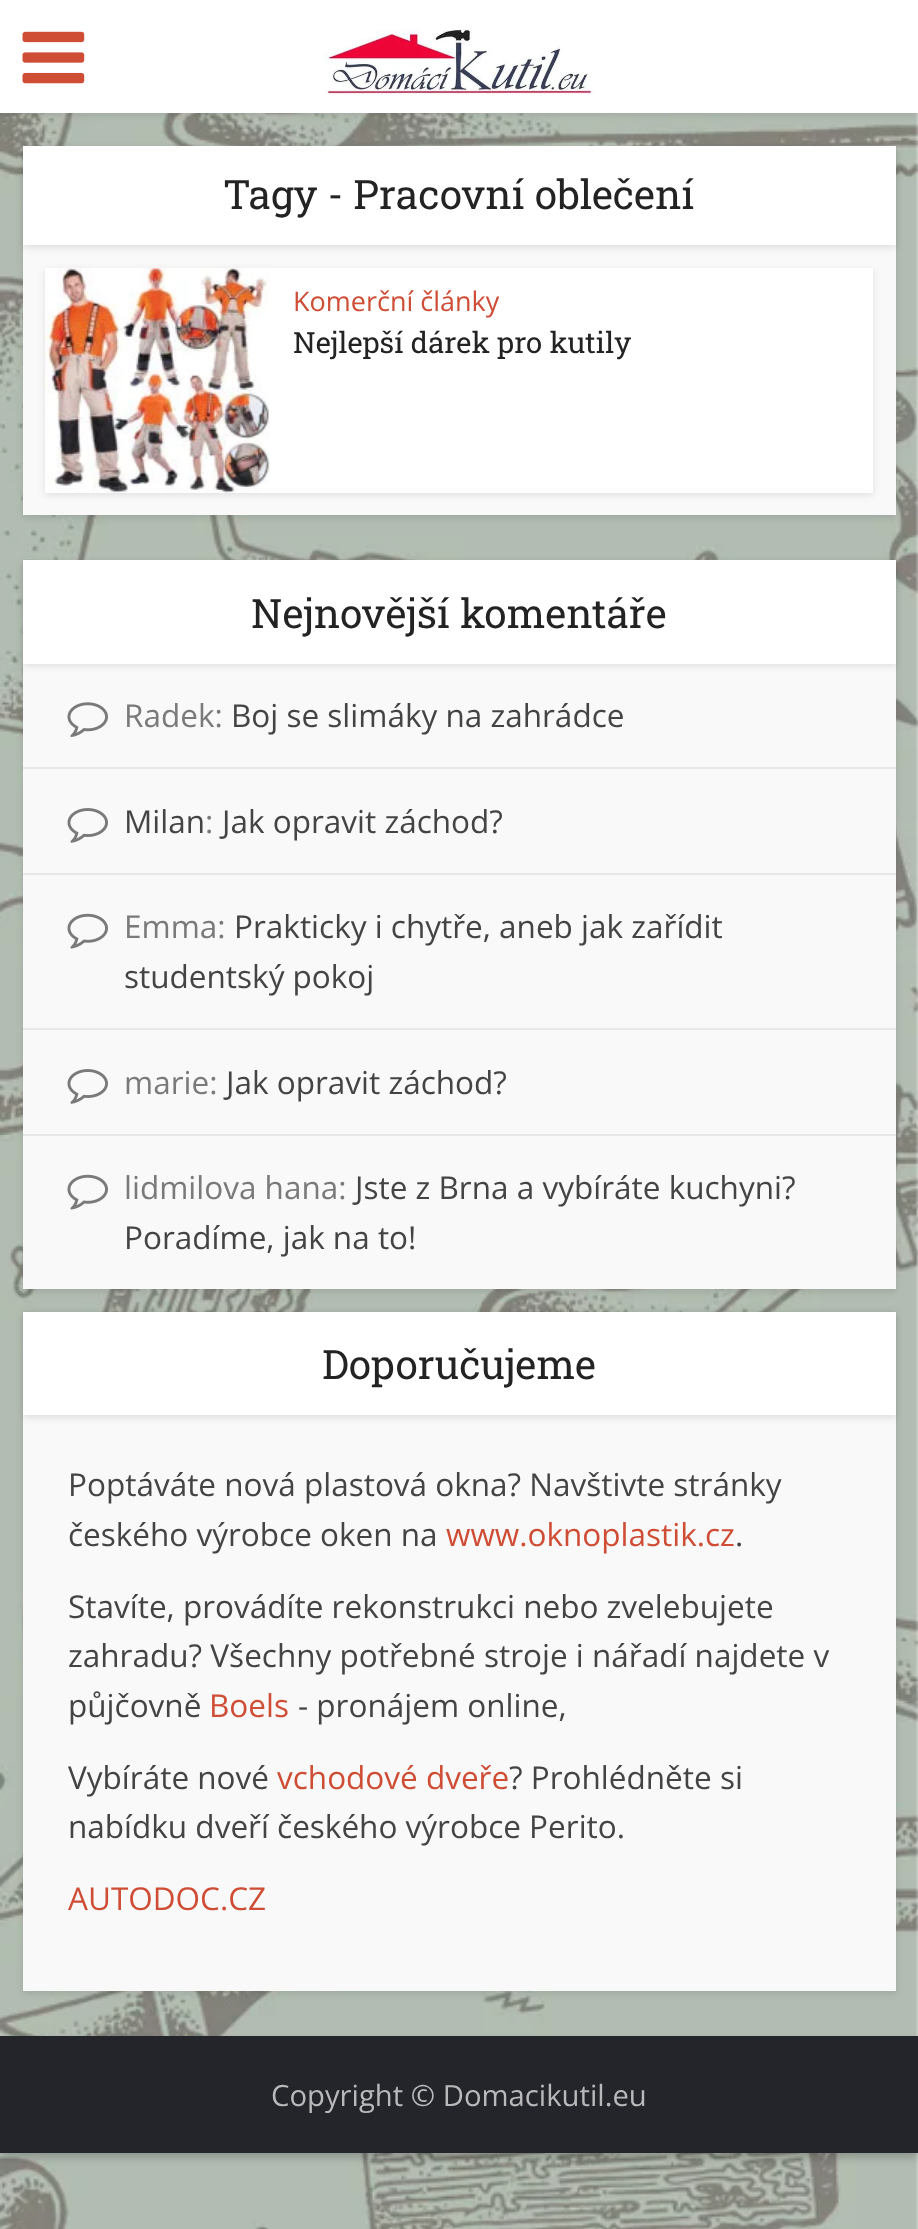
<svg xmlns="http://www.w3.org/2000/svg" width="918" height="2229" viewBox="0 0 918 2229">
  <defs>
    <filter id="blur1" x="-50%" y="-200%" width="200%" height="500%"><feGaussianBlur stdDeviation="3.5"/></filter>
    <filter id="blur2" x="-50%" y="-200%" width="200%" height="500%"><feGaussianBlur stdDeviation="4.5"/></filter>
  </defs>
  <rect width="100%" height="100%" fill="#ffffff"/>
  <image x="0" y="113" width="918" height="2116" href="img1.png"/>
  <rect x="0" y="2" width="918" height="113" fill="#000000" fill-opacity="0.1" filter="url(#blur1)"/>
  <rect x="0" y="0" width="918" height="113" fill="#ffffff"/>
  <image x="22" y="31" width="63" height="53" href="img2.png"/>
  <image x="324" y="29" width="270" height="66" href="img3.png"/>
  <rect x="23" y="149" width="873" height="369" fill="#000000" fill-opacity="0.1" filter="url(#blur1)"/>
  <rect x="23" y="245" width="873" height="270" fill="#f9f9f9"/>
  <rect x="23" y="149" width="873" height="99" fill="#000000" fill-opacity="0.1" filter="url(#blur1)"/>
  <rect x="23" y="146" width="873" height="99" fill="#ffffff"/>
  <text x="223" y="209" font-family="Roboto Slab" font-size="40.5" fill="#232323">Tagy - Pracovní oblečení</text>
  <rect x="45" y="270" width="828" height="225" fill="#000000" fill-opacity="0.1" filter="url(#blur1)"/>
  <rect x="45" y="268" width="828" height="225" fill="#ffffff"/>
  <image x="45" y="268" width="225" height="225" href="img4.png"/>
  <text x="293" y="311" font-family="Open Sans" font-size="27" fill="#cf4d35">Komerční články</text>
  <text x="293" y="353" font-family="Roboto Slab" font-size="29.25" fill="#232323">Nejlepší dárek pro kutily</text>
  <rect x="23" y="563" width="873" height="729" fill="#000000" fill-opacity="0.1" filter="url(#blur1)"/>
  <rect x="23" y="664" width="873" height="625" fill="#f9f9f9"/>
  <rect x="23" y="563" width="873" height="103" fill="#000000" fill-opacity="0.1" filter="url(#blur1)"/>
  <rect x="23" y="560" width="873" height="104" fill="#ffffff"/>
  <text x="251" y="628" font-family="Roboto Slab" font-size="40.5" fill="#232323">Nejnovější komentáře</text>
  <rect x="23" y="767" width="873" height="2" fill="#e8e8e8"/>
  <image x="67" y="702" width="41" height="35" href="img5.png"/>
  <text x="124" y="727" font-family="Open Sans" font-size="31.5" fill="#7a7a7a">Radek:</text>
  <text x="231" y="727" font-family="Open Sans" font-size="31.5" fill="#444444">Boj se slimáky na zahrádce</text>
  <rect x="23" y="873" width="873" height="2" fill="#e8e8e8"/>
  <image x="67" y="808" width="41" height="35" href="img6.png"/>
  <text x="124" y="833" font-family="Open Sans" font-size="31.5" fill="#444444">Milan</text>
  <text x="205" y="833" font-family="Open Sans" font-size="31.5" fill="#7a7a7a">:</text>
  <text x="222" y="833" font-family="Open Sans" font-size="31.5" fill="#444444">Jak opravit záchod?</text>
  <rect x="23" y="1028" width="873" height="2" fill="#e8e8e8"/>
  <image x="67" y="913" width="41" height="36" href="img7.png"/>
  <text x="124" y="938" font-family="Open Sans" font-size="31.5" fill="#7a7a7a">Emma:</text>
  <text x="234" y="938" font-family="Open Sans" font-size="31.5" fill="#444444">Prakticky i chytře, aneb jak zařídit</text>
  <text x="124" y="988" font-family="Open Sans" font-size="31.5" fill="#444444">studentský pokoj</text>
  <rect x="23" y="1134" width="873" height="2" fill="#e8e8e8"/>
  <image x="67" y="1069" width="41" height="35" href="img6.png"/>
  <text x="124" y="1094" font-family="Open Sans" font-size="31.5" fill="#7a7a7a">marie:</text>
  <text x="226" y="1094" font-family="Open Sans" font-size="31.5" fill="#444444">Jak opravit záchod?</text>
  <image x="67" y="1174" width="41" height="36" href="img7.png"/>
  <text x="124" y="1199" font-family="Open Sans" font-size="31.5" fill="#7a7a7a">lidmilova hana:</text>
  <text x="355" y="1199" font-family="Open Sans" font-size="31.5" fill="#444444">Jste z Brna a vybíráte kuchyni?</text>
  <text x="124" y="1249" font-family="Open Sans" font-size="31.5" fill="#444444">Poradíme, jak na to!</text>
  <rect x="23" y="1314" width="873" height="680" fill="#000000" fill-opacity="0.1" filter="url(#blur1)"/>
  <rect x="23" y="1415" width="873" height="576" fill="#f9f9f9"/>
  <rect x="23" y="1314" width="873" height="104" fill="#000000" fill-opacity="0.1" filter="url(#blur1)"/>
  <rect x="23" y="1312" width="873" height="103" fill="#ffffff"/>
  <text x="322" y="1379" font-family="Roboto Slab" font-size="40.5" fill="#232323">Doporučujeme</text>
  <text x="68" y="1496" font-family="Open Sans" font-size="31.5" fill="#444444">Poptáváte nová plastová okna? Navštivte stránky</text>
  <text x="68" y="1546" font-family="Open Sans" font-size="31.5" fill="#444444">českého výrobce oken na</text>
  <text x="446" y="1546" font-family="Open Sans" font-size="31.5" fill="#cf4d35">www.oknoplastik.cz</text>
  <text x="735" y="1546" font-family="Open Sans" font-size="31.5" fill="#444444">.</text>
  <text x="68" y="1618" font-family="Open Sans" font-size="31.5" fill="#444444">Stavíte, provádíte rekonstrukci nebo zvelebujete</text>
  <text x="68" y="1667" font-family="Open Sans" font-size="31.5" fill="#444444">zahradu? Všechny potřebné stroje i nářadí najdete v</text>
  <text x="68" y="1717" font-family="Open Sans" font-size="31.5" fill="#444444">půjčovně</text>
  <text x="209" y="1717" font-family="Open Sans" font-size="31.5" fill="#cf4d35">Boels</text>
  <text x="298" y="1717" font-family="Open Sans" font-size="31.5" fill="#444444">- pronájem online,</text>
  <text x="68" y="1789" font-family="Open Sans" font-size="31.5" fill="#444444">Vybíráte nové</text>
  <text x="277" y="1789" font-family="Open Sans" font-size="31.5" fill="#cf4d35">vchodové dveře</text>
  <text x="509" y="1789" font-family="Open Sans" font-size="31.5" fill="#444444">? Prohlédněte si</text>
  <text x="68" y="1838" font-family="Open Sans" font-size="31.5" fill="#444444">nabídku dveří českého výrobce Perito.</text>
  <text x="68" y="1910" font-family="Open Sans" font-size="31.5" fill="#cf4d35">AUTODOC.CZ</text>
  <rect x="0" y="2041" width="918" height="117" fill="#000000" fill-opacity="0.2" filter="url(#blur2)"/>
  <rect x="0" y="2036" width="918" height="117" fill="#24252a"/>
  <text x="271" y="2106" font-family="Open Sans" font-size="29.25" fill="#b9b9bb">Copyright © Domacikutil.eu</text>
</svg>
